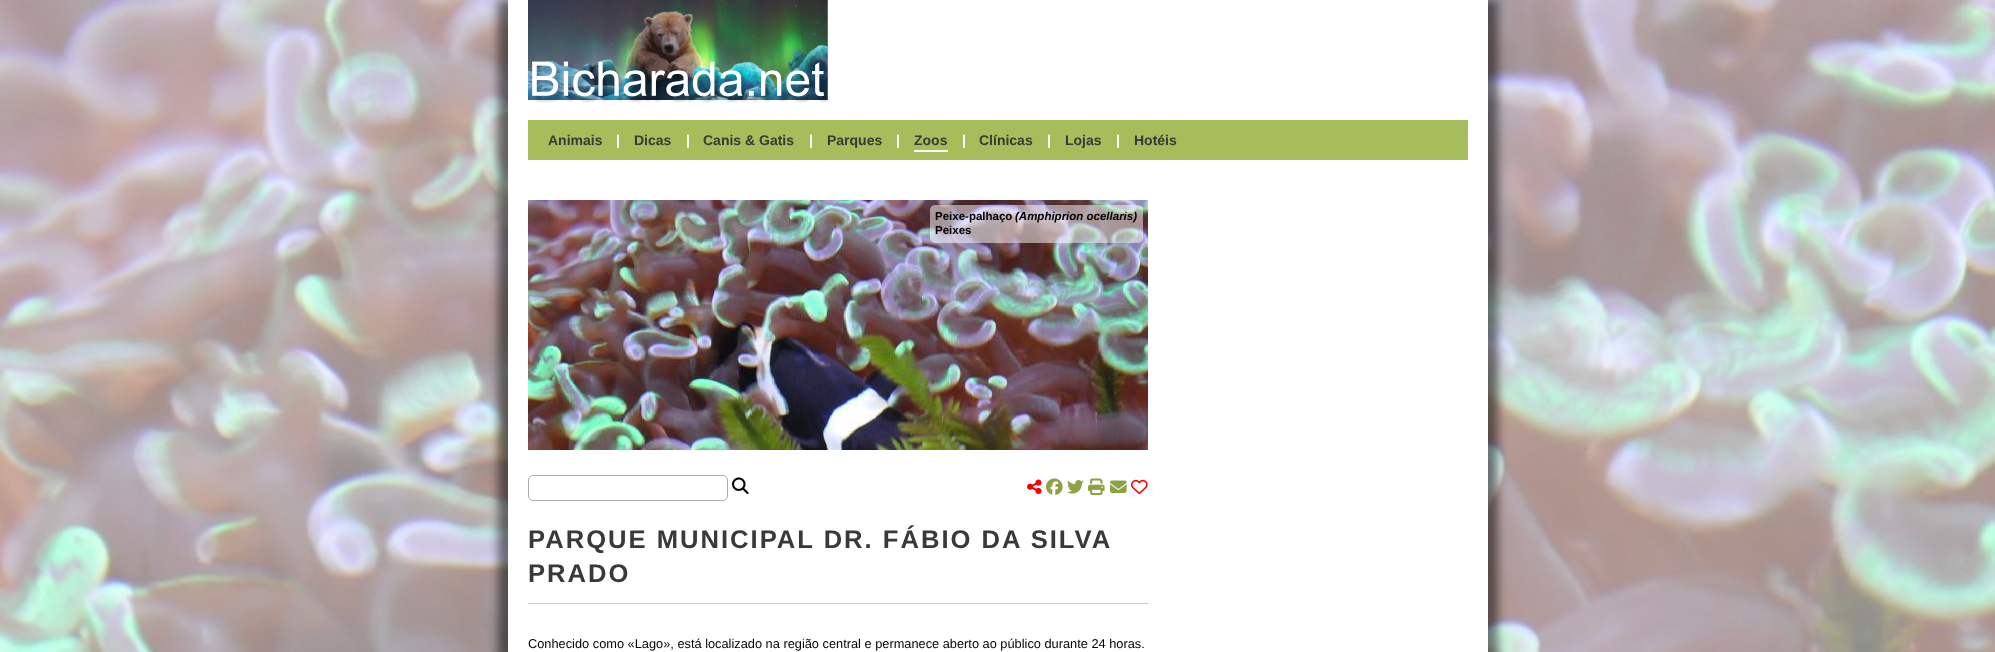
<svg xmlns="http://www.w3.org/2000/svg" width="1995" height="652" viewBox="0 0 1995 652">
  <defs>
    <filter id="blur1" x="-50%" y="-200%" width="200%" height="500%"><feGaussianBlur stdDeviation="5"/></filter>
  </defs>
  <rect width="100%" height="100%" fill="#ffffff"/>
  <image x="0" y="0" width="1995" height="652" href="img1.png"/>
  <rect x="498" y="0" width="980" height="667" fill="#000000" fill-opacity="0.5" filter="url(#blur1)"/>
  <rect x="518" y="0" width="980" height="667" fill="#000000" fill-opacity="0.5" filter="url(#blur1)"/>
  <rect x="508" y="0" width="980" height="652" fill="#ffffff"/>
  <image x="528" y="0" width="302" height="103" href="img2.png"/>
  <rect x="528" y="120" width="940" height="40" fill="#a7bc5b"/>
  <text x="548" y="145" font-family="Liberation Sans" font-size="14" font-weight="bold" fill="#373a36">Animais</text>
  <text x="616" y="145" font-family="Liberation Sans" font-size="14" font-weight="bold" fill="#ffffff">|</text>
  <text x="634" y="145" font-family="Liberation Sans" font-size="14" font-weight="bold" fill="#373a36">Dicas</text>
  <text x="686" y="145" font-family="Liberation Sans" font-size="14" font-weight="bold" fill="#ffffff">|</text>
  <text x="703" y="145" font-family="Liberation Sans" font-size="14" font-weight="bold" fill="#373a36">Canis &amp; Gatis</text>
  <text x="809" y="145" font-family="Liberation Sans" font-size="14" font-weight="bold" fill="#ffffff">|</text>
  <text x="827" y="145" font-family="Liberation Sans" font-size="14" font-weight="bold" fill="#373a36">Parques</text>
  <text x="896" y="145" font-family="Liberation Sans" font-size="14" font-weight="bold" fill="#ffffff">|</text>
  <text x="914" y="145" font-family="Liberation Sans" font-size="14" font-weight="bold" fill="#373a36">Zoos</text>
  <rect x="914" y="150" width="34" height="2" fill="#ffffff"/>
  <text x="962" y="145" font-family="Liberation Sans" font-size="14" font-weight="bold" fill="#ffffff">|</text>
  <text x="979" y="145" font-family="Liberation Sans" font-size="14" font-weight="bold" fill="#373a36">Clínicas</text>
  <text x="1047" y="145" font-family="Liberation Sans" font-size="14" font-weight="bold" fill="#ffffff">|</text>
  <text x="1065" y="145" font-family="Liberation Sans" font-size="14" font-weight="bold" fill="#373a36">Lojas</text>
  <text x="1116" y="145" font-family="Liberation Sans" font-size="14" font-weight="bold" fill="#ffffff">|</text>
  <text x="1134" y="145" font-family="Liberation Sans" font-size="14" font-weight="bold" fill="#373a36">Hotéis</text>
  <image x="528" y="200" width="620" height="250" href="img3.png"/>
  <rect x="930" y="205" width="213" height="38" rx="5" fill="#ffffff" fill-opacity="0.5"/>
  <text x="935" y="220" font-family="Liberation Sans" font-size="11.5" font-weight="bold" fill="#000000">Peixe-palhaço</text>
  <text x="1015" y="220" font-family="Liberation Sans" font-size="11.5" font-weight="bold" font-style="italic" fill="#000000">(Amphiprion ocellaris)</text>
  <text x="935" y="234" font-family="Liberation Sans" font-size="11.5" font-weight="bold" fill="#000000">Peixes</text>
  <rect x="528.5" y="475.5" width="199" height="25" rx="4.5" fill="none" stroke="#aaaaaa"/>
  <image x="732" y="477" width="17" height="18" href="img4.png"/>
  <image x="1027" y="479" width="15" height="15" href="img5.png"/>
  <image x="1046" y="478" width="17" height="17" href="img6.png"/>
  <image x="1067" y="480" width="17" height="14" href="img7.png"/>
  <image x="1088" y="478" width="17" height="18" href="img8.png"/>
  <image x="1110" y="480" width="17" height="13" href="img9.png"/>
  <image x="1131" y="479" width="17" height="15" href="img10.png"/>
  <rect x="528" y="603" width="620" height="1" fill="#cccccc"/>
  <text x="528" y="548" font-family="Liberation Sans" font-size="25.6" font-weight="bold" letter-spacing="2" fill="#373a36">PARQUE MUNICIPAL DR. FÁBIO DA SILVA</text>
  <text x="528" y="582" font-family="Liberation Sans" font-size="25.6" font-weight="bold" letter-spacing="2" fill="#373a36">PRADO</text>
  <text x="528" y="648" font-family="Liberation Sans" font-size="12.8" fill="#000000">Conhecido como «Lago», está localizado na região central e permanece aberto ao público durante 24 horas.</text>
</svg>
